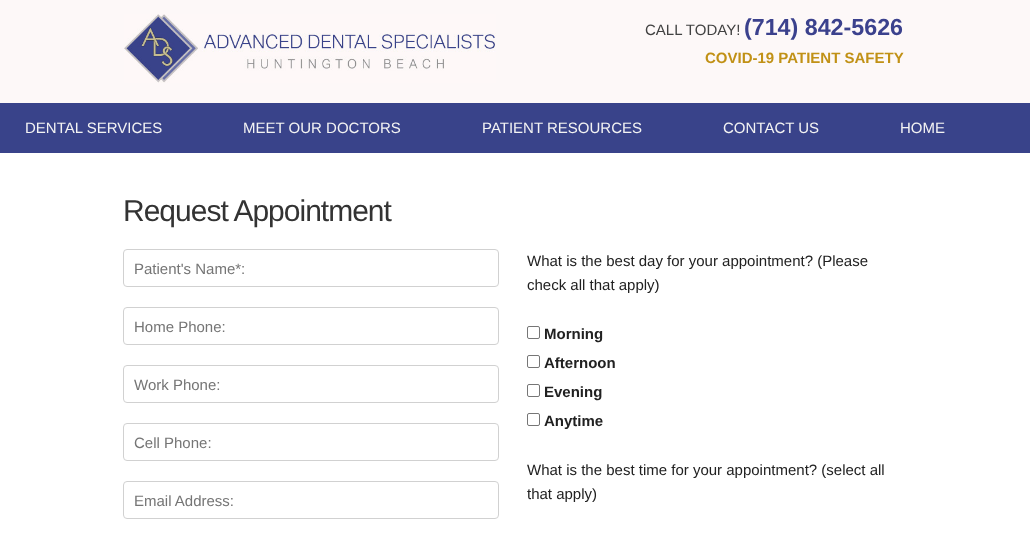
<svg xmlns="http://www.w3.org/2000/svg" width="1030" height="534" viewBox="0 0 1030 534">
  <rect width="100%" height="100%" fill="#ffffff"/>
  <rect x="0" y="0" width="1030" height="103" fill="#fdf8f8"/>
  <image x="124" y="14" width="372" height="69" href="img1.png"/>
  <text x="645" y="35" font-family="Liberation Sans" font-size="15" fill="#424242">CALL TODAY!</text>
  <text x="744" y="35" font-family="Liberation Sans" font-size="23.25" font-weight="bold" fill="#3b418d">(714) 842-5626</text>
  <text x="705" y="63" font-family="Liberation Sans" font-size="15" font-weight="bold" fill="#c19116">COVID-19 PATIENT SAFETY</text>
  <rect x="0" y="103" width="1030" height="50" fill="#39438a"/>
  <text x="25" y="133" font-family="Liberation Sans" font-size="15" fill="#f3f3f3">DENTAL SERVICES</text>
  <text x="243" y="133" font-family="Liberation Sans" font-size="15" fill="#f3f3f3">MEET OUR DOCTORS</text>
  <text x="482" y="133" font-family="Liberation Sans" font-size="15" fill="#f3f3f3">PATIENT RESOURCES</text>
  <text x="723" y="133" font-family="Liberation Sans" font-size="15" fill="#f3f3f3">CONTACT US</text>
  <text x="900" y="133" font-family="Liberation Sans" font-size="15" fill="#f3f3f3">HOME</text>
  <text x="123" y="221" font-family="Liberation Sans" font-size="30" letter-spacing="-1" fill="#333333">Request Appointment</text>
  <rect x="123.5" y="249.5" width="375" height="37" rx="3.5" fill="none" stroke="#d1d1d1"/>
  <text x="134" y="274" font-family="Liberation Sans" font-size="15" fill="#757575">Patient's Name*:</text>
  <rect x="123.5" y="307.5" width="375" height="37" rx="3.5" fill="none" stroke="#d1d1d1"/>
  <text x="134" y="332" font-family="Liberation Sans" font-size="15" fill="#757575">Home Phone:</text>
  <rect x="123.5" y="365.5" width="375" height="37" rx="3.5" fill="none" stroke="#d1d1d1"/>
  <text x="134" y="390" font-family="Liberation Sans" font-size="15" fill="#757575">Work Phone:</text>
  <rect x="123.5" y="423.5" width="375" height="37" rx="3.5" fill="none" stroke="#d1d1d1"/>
  <text x="134" y="448" font-family="Liberation Sans" font-size="15" fill="#757575">Cell Phone:</text>
  <rect x="123.5" y="481.5" width="375" height="37" rx="3.5" fill="none" stroke="#d1d1d1"/>
  <text x="134" y="506" font-family="Liberation Sans" font-size="15" fill="#757575">Email Address:</text>
  <text x="527" y="266" font-family="Liberation Sans" font-size="15" fill="#212121">What is the best day for your appointment? (Please</text>
  <text x="527" y="290" font-family="Liberation Sans" font-size="15" fill="#212121">check all that apply)</text>
  <rect x="527.5" y="326.5" width="12" height="12" rx="1.5" fill="none" stroke="#767676"/>
  <text x="544" y="339" font-family="Liberation Sans" font-size="15" font-weight="bold" fill="#212121">Morning</text>
  <rect x="527.5" y="355.5" width="12" height="12" rx="1.5" fill="none" stroke="#767676"/>
  <text x="544" y="368" font-family="Liberation Sans" font-size="15" font-weight="bold" fill="#212121">Afternoon</text>
  <rect x="527.5" y="384.5" width="12" height="12" rx="1.5" fill="none" stroke="#767676"/>
  <text x="544" y="397" font-family="Liberation Sans" font-size="15" font-weight="bold" fill="#212121">Evening</text>
  <rect x="527.5" y="413.5" width="12" height="12" rx="1.5" fill="none" stroke="#767676"/>
  <text x="544" y="426" font-family="Liberation Sans" font-size="15" font-weight="bold" fill="#212121">Anytime</text>
  <text x="527" y="475" font-family="Liberation Sans" font-size="15" fill="#212121">What is the best time for your appointment? (select all</text>
  <text x="527" y="499" font-family="Liberation Sans" font-size="15" fill="#212121">that apply)</text>
</svg>
